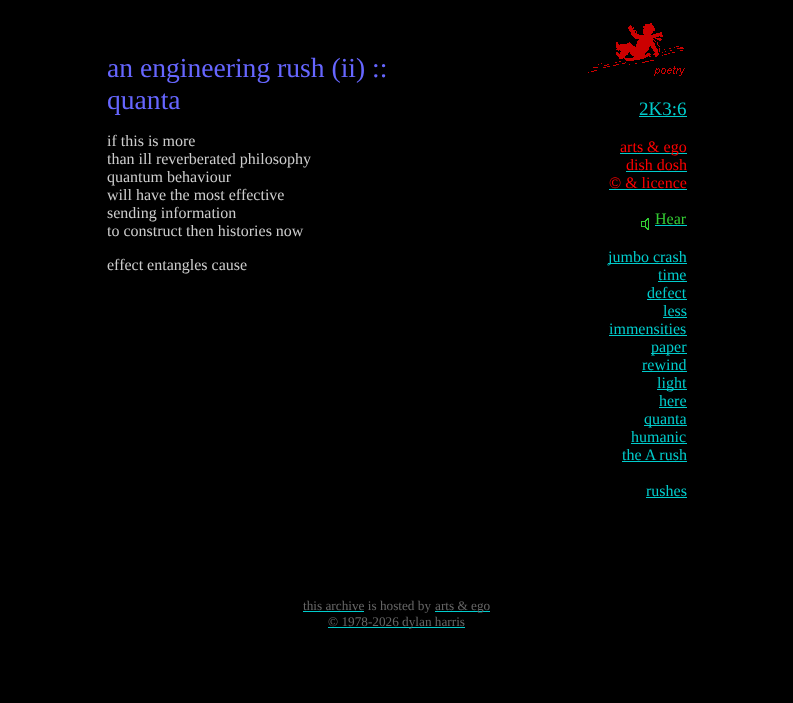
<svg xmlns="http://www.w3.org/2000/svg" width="793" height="703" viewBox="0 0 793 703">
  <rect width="100%" height="100%" fill="#000000"/>
  <text x="107" y="77" font-family="Liberation Serif" font-size="27.6" fill="#6666ff">an engineering rush (ii) ::</text>
  <text x="107" y="109" font-family="Liberation Serif" font-size="27.6" fill="#6666ff">quanta</text>
  <text x="107" y="146" font-family="Liberation Serif" font-size="16" fill="#cccccc">if this is more</text>
  <text x="107" y="164" font-family="Liberation Serif" font-size="16" fill="#cccccc">than ill reverberated philosophy</text>
  <text x="107" y="182" font-family="Liberation Serif" font-size="16" fill="#cccccc">quantum behaviour</text>
  <text x="107" y="200" font-family="Liberation Serif" font-size="16" fill="#cccccc">will have the most effective</text>
  <text x="107" y="218" font-family="Liberation Serif" font-size="16" fill="#cccccc">sending information</text>
  <text x="107" y="236" font-family="Liberation Serif" font-size="16" fill="#cccccc">to construct then histories now</text>
  <text x="107" y="270" font-family="Liberation Serif" font-size="16" fill="#cccccc">effect entangles cause</text>
  <image x="588" y="23" width="97" height="53" href="img1.png"/>
  <text x="639" y="115" font-family="Liberation Serif" font-size="19" fill="#00cccc">2K3:6</text>
  <rect x="639" y="116" width="48" height="1" fill="#00cccc"/>
  <rect x="620" y="153" width="67" height="1" fill="#00cccc"/>
  <text x="620" y="152" font-family="Liberation Serif" font-size="16" fill="#ff0000">arts &amp; ego</text>
  <text x="626" y="170" font-family="Liberation Serif" font-size="16" fill="#ff0000">dish dosh</text>
  <rect x="626" y="171" width="61" height="1" fill="#00cccc"/>
  <text x="609" y="188" font-family="Liberation Serif" font-size="16" fill="#ff0000">© &amp; licence</text>
  <rect x="609" y="189" width="78" height="1" fill="#00cccc"/>
  <image x="641" y="218" width="8" height="12" href="img2.png"/>
  <text x="655" y="224" font-family="Liberation Serif" font-size="16" fill="#33cc33">Hear</text>
  <rect x="655" y="225" width="32" height="1" fill="#00cccc"/>
  <rect x="608" y="263" width="79" height="1" fill="#00cccc"/>
  <text x="608" y="262" font-family="Liberation Serif" font-size="16" fill="#00cccc">jumbo crash</text>
  <text x="658" y="280" font-family="Liberation Serif" font-size="16" fill="#00cccc">time</text>
  <rect x="658" y="281" width="29" height="1" fill="#00cccc"/>
  <text x="647" y="298" font-family="Liberation Serif" font-size="16" fill="#00cccc">defect</text>
  <rect x="647" y="299" width="40" height="1" fill="#00cccc"/>
  <text x="663" y="316" font-family="Liberation Serif" font-size="16" fill="#00cccc">less</text>
  <rect x="663" y="317" width="24" height="1" fill="#00cccc"/>
  <text x="609" y="334" font-family="Liberation Serif" font-size="16" fill="#00cccc">immensities</text>
  <rect x="609" y="335" width="78" height="1" fill="#00cccc"/>
  <rect x="651" y="353" width="36" height="1" fill="#00cccc"/>
  <text x="651" y="352" font-family="Liberation Serif" font-size="16" fill="#00cccc">paper</text>
  <text x="642" y="370" font-family="Liberation Serif" font-size="16" fill="#00cccc">rewind</text>
  <rect x="642" y="371" width="45" height="1" fill="#00cccc"/>
  <rect x="657" y="389" width="30" height="1" fill="#00cccc"/>
  <text x="657" y="388" font-family="Liberation Serif" font-size="16" fill="#00cccc">light</text>
  <text x="659" y="406" font-family="Liberation Serif" font-size="16" fill="#00cccc">here</text>
  <rect x="659" y="407" width="28" height="1" fill="#00cccc"/>
  <rect x="644" y="425" width="43" height="1" fill="#00cccc"/>
  <text x="644" y="424" font-family="Liberation Serif" font-size="16" fill="#00cccc">quanta</text>
  <text x="631" y="442" font-family="Liberation Serif" font-size="16" fill="#00cccc">humanic</text>
  <rect x="631" y="443" width="56" height="1" fill="#00cccc"/>
  <text x="622" y="460" font-family="Liberation Serif" font-size="16" fill="#00cccc">the A rush</text>
  <rect x="622" y="461" width="65" height="1" fill="#00cccc"/>
  <text x="646" y="496" font-family="Liberation Serif" font-size="16" fill="#00cccc">rushes</text>
  <rect x="646" y="497" width="41" height="1" fill="#00cccc"/>
  <rect x="303" y="611" width="61" height="1" fill="#00cccc"/>
  <text x="303" y="610" font-family="Liberation Serif" font-size="13.25" fill="#666666">this archive is hosted by</text>
  <rect x="435" y="611" width="55" height="1" fill="#00cccc"/>
  <text x="435" y="610" font-family="Liberation Serif" font-size="13.25" fill="#666666">arts &amp; ego</text>
  <rect x="328" y="627" width="137" height="1" fill="#00cccc"/>
  <text x="328" y="626" font-family="Liberation Serif" font-size="13.25" fill="#666666">© 1978-2026 dylan harris</text>
</svg>
